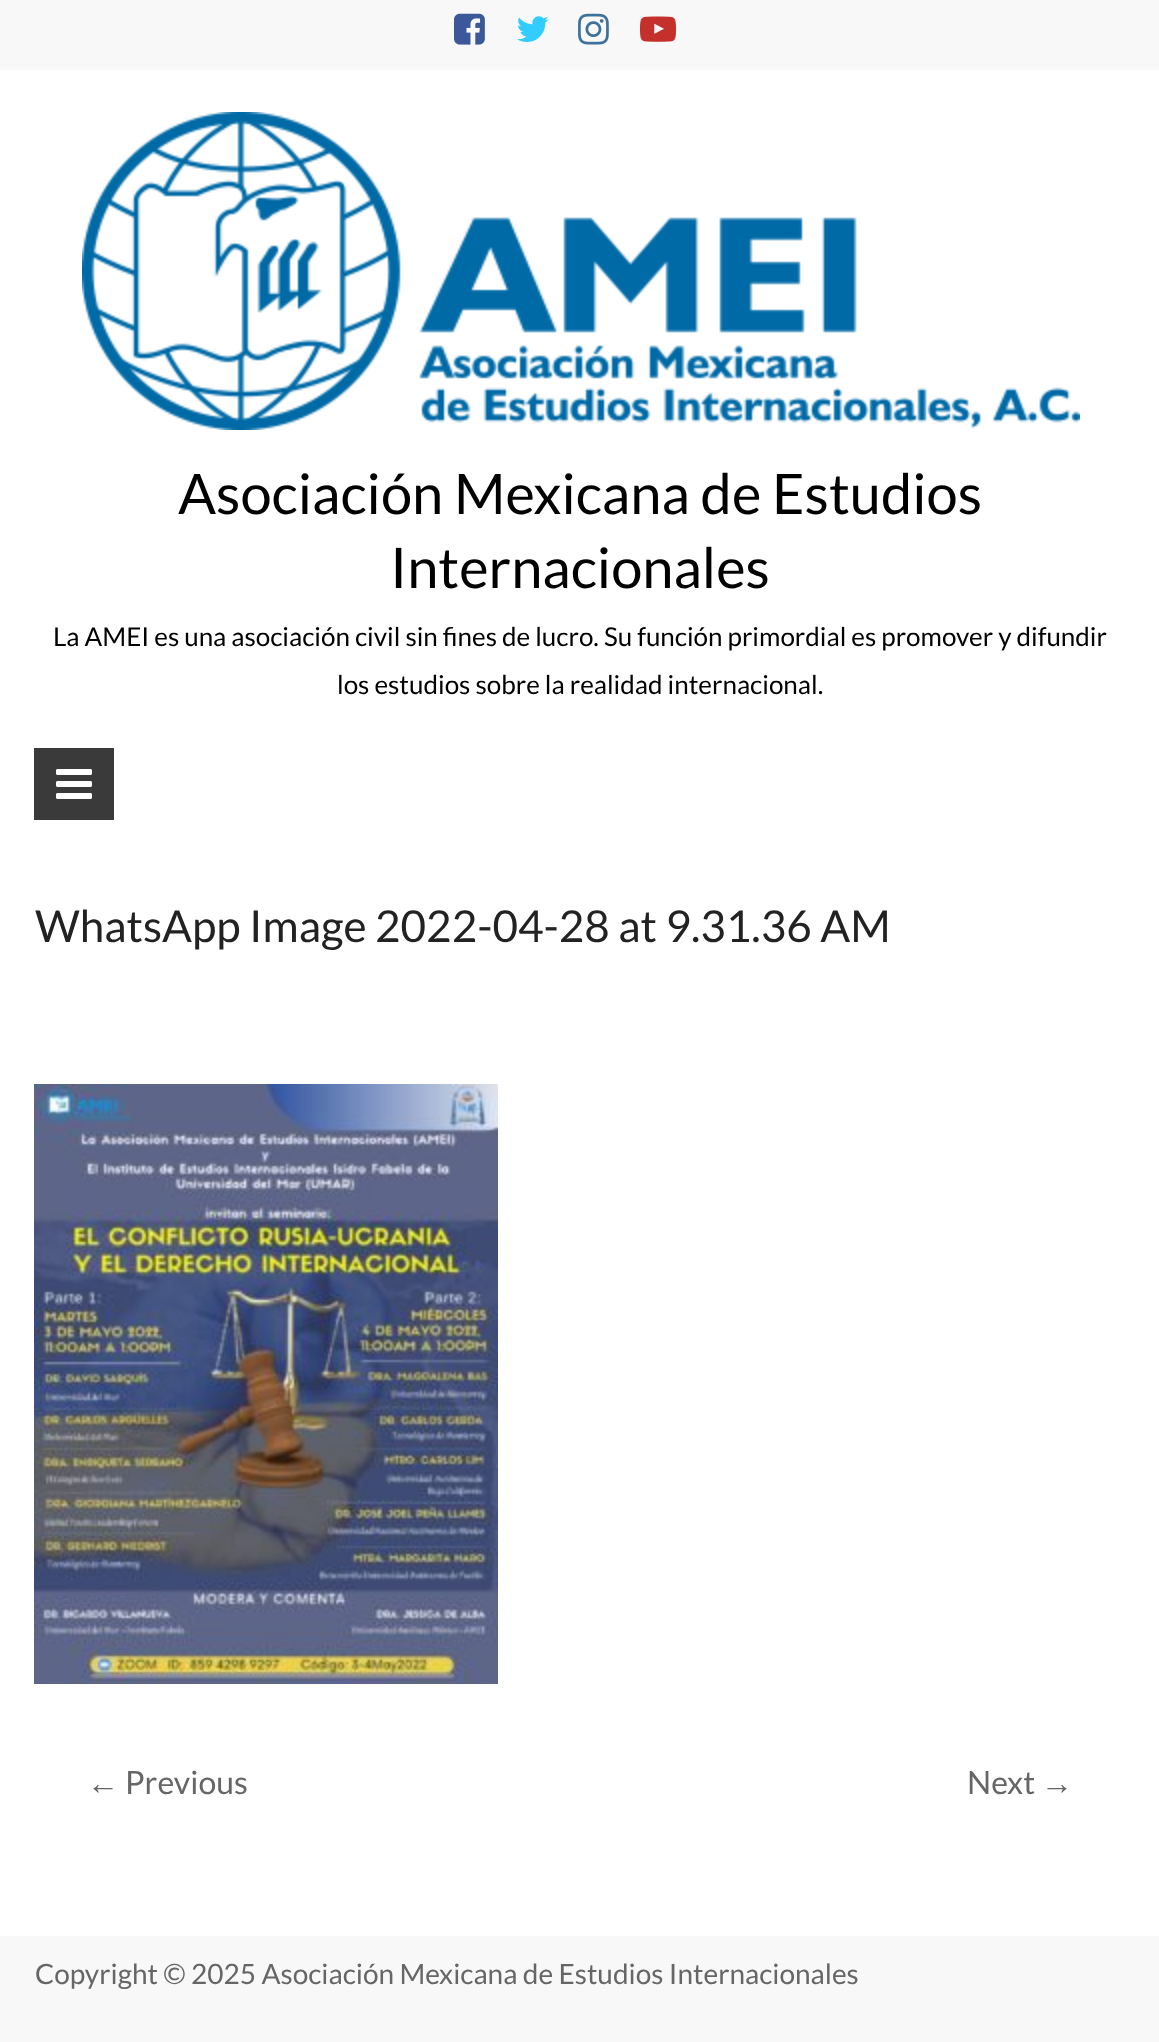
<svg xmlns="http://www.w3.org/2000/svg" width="1159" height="2042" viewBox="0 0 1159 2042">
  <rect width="100%" height="100%" fill="#ffffff"/>
  <rect x="0" y="0" width="1159" height="70" fill="#f8f8f8"/>
  <image x="454" y="13" width="31" height="32" href="img1.png"/>
  <image x="517" y="16" width="32" height="26" href="img2.png"/>
  <image x="578" y="13" width="31" height="32" href="img3.png"/>
  <image x="640" y="16" width="36" height="26" href="img4.png"/>
  <image x="82" y="112" width="998" height="318" href="img5.png"/>
  <text x="178" y="514" font-family="Lato" font-size="56" fill="#000000">Asociación Mexicana de Estudios</text>
  <text x="390" y="588" font-family="Lato" font-size="56" fill="#000000">Internacionales</text>
  <text x="53" y="646" font-family="Lato" font-size="26" fill="#000000">La AMEI es una asociación civil sin fines de lucro. Su función primordial es promover y difundir</text>
  <text x="337" y="694" font-family="Lato" font-size="26" fill="#000000">los estudios sobre la realidad internacional.</text>
  <rect x="34" y="748" width="80" height="72" fill="#3a3a3a"/>
  <image x="56" y="769" width="36" height="30" href="img6.png"/>
  <text x="35" y="942" font-family="Lato" font-size="44" fill="#222222">WhatsApp Image 2022-04-28 at 9.31.36 AM</text>
  <image x="34" y="1084" width="464" height="600" href="img7.png"/>
  <text x="87" y="1794" font-family="Liberation Sans" font-size="32" fill="#666666">←</text>
  <text x="125" y="1794" font-family="Lato" font-size="32" fill="#666666">Previous</text>
  <text x="967" y="1794" font-family="Lato" font-size="32" fill="#666666">Next</text>
  <text x="1041" y="1794" font-family="Liberation Sans" font-size="32" fill="#666666">→</text>
  <rect x="0" y="1936" width="1159" height="106" fill="#f8f8f8"/>
  <text x="35" y="1984" font-family="Lato" font-size="28" fill="#666666">Copyright © 2025 Asociación Mexicana de Estudios Internacionales</text>
</svg>
